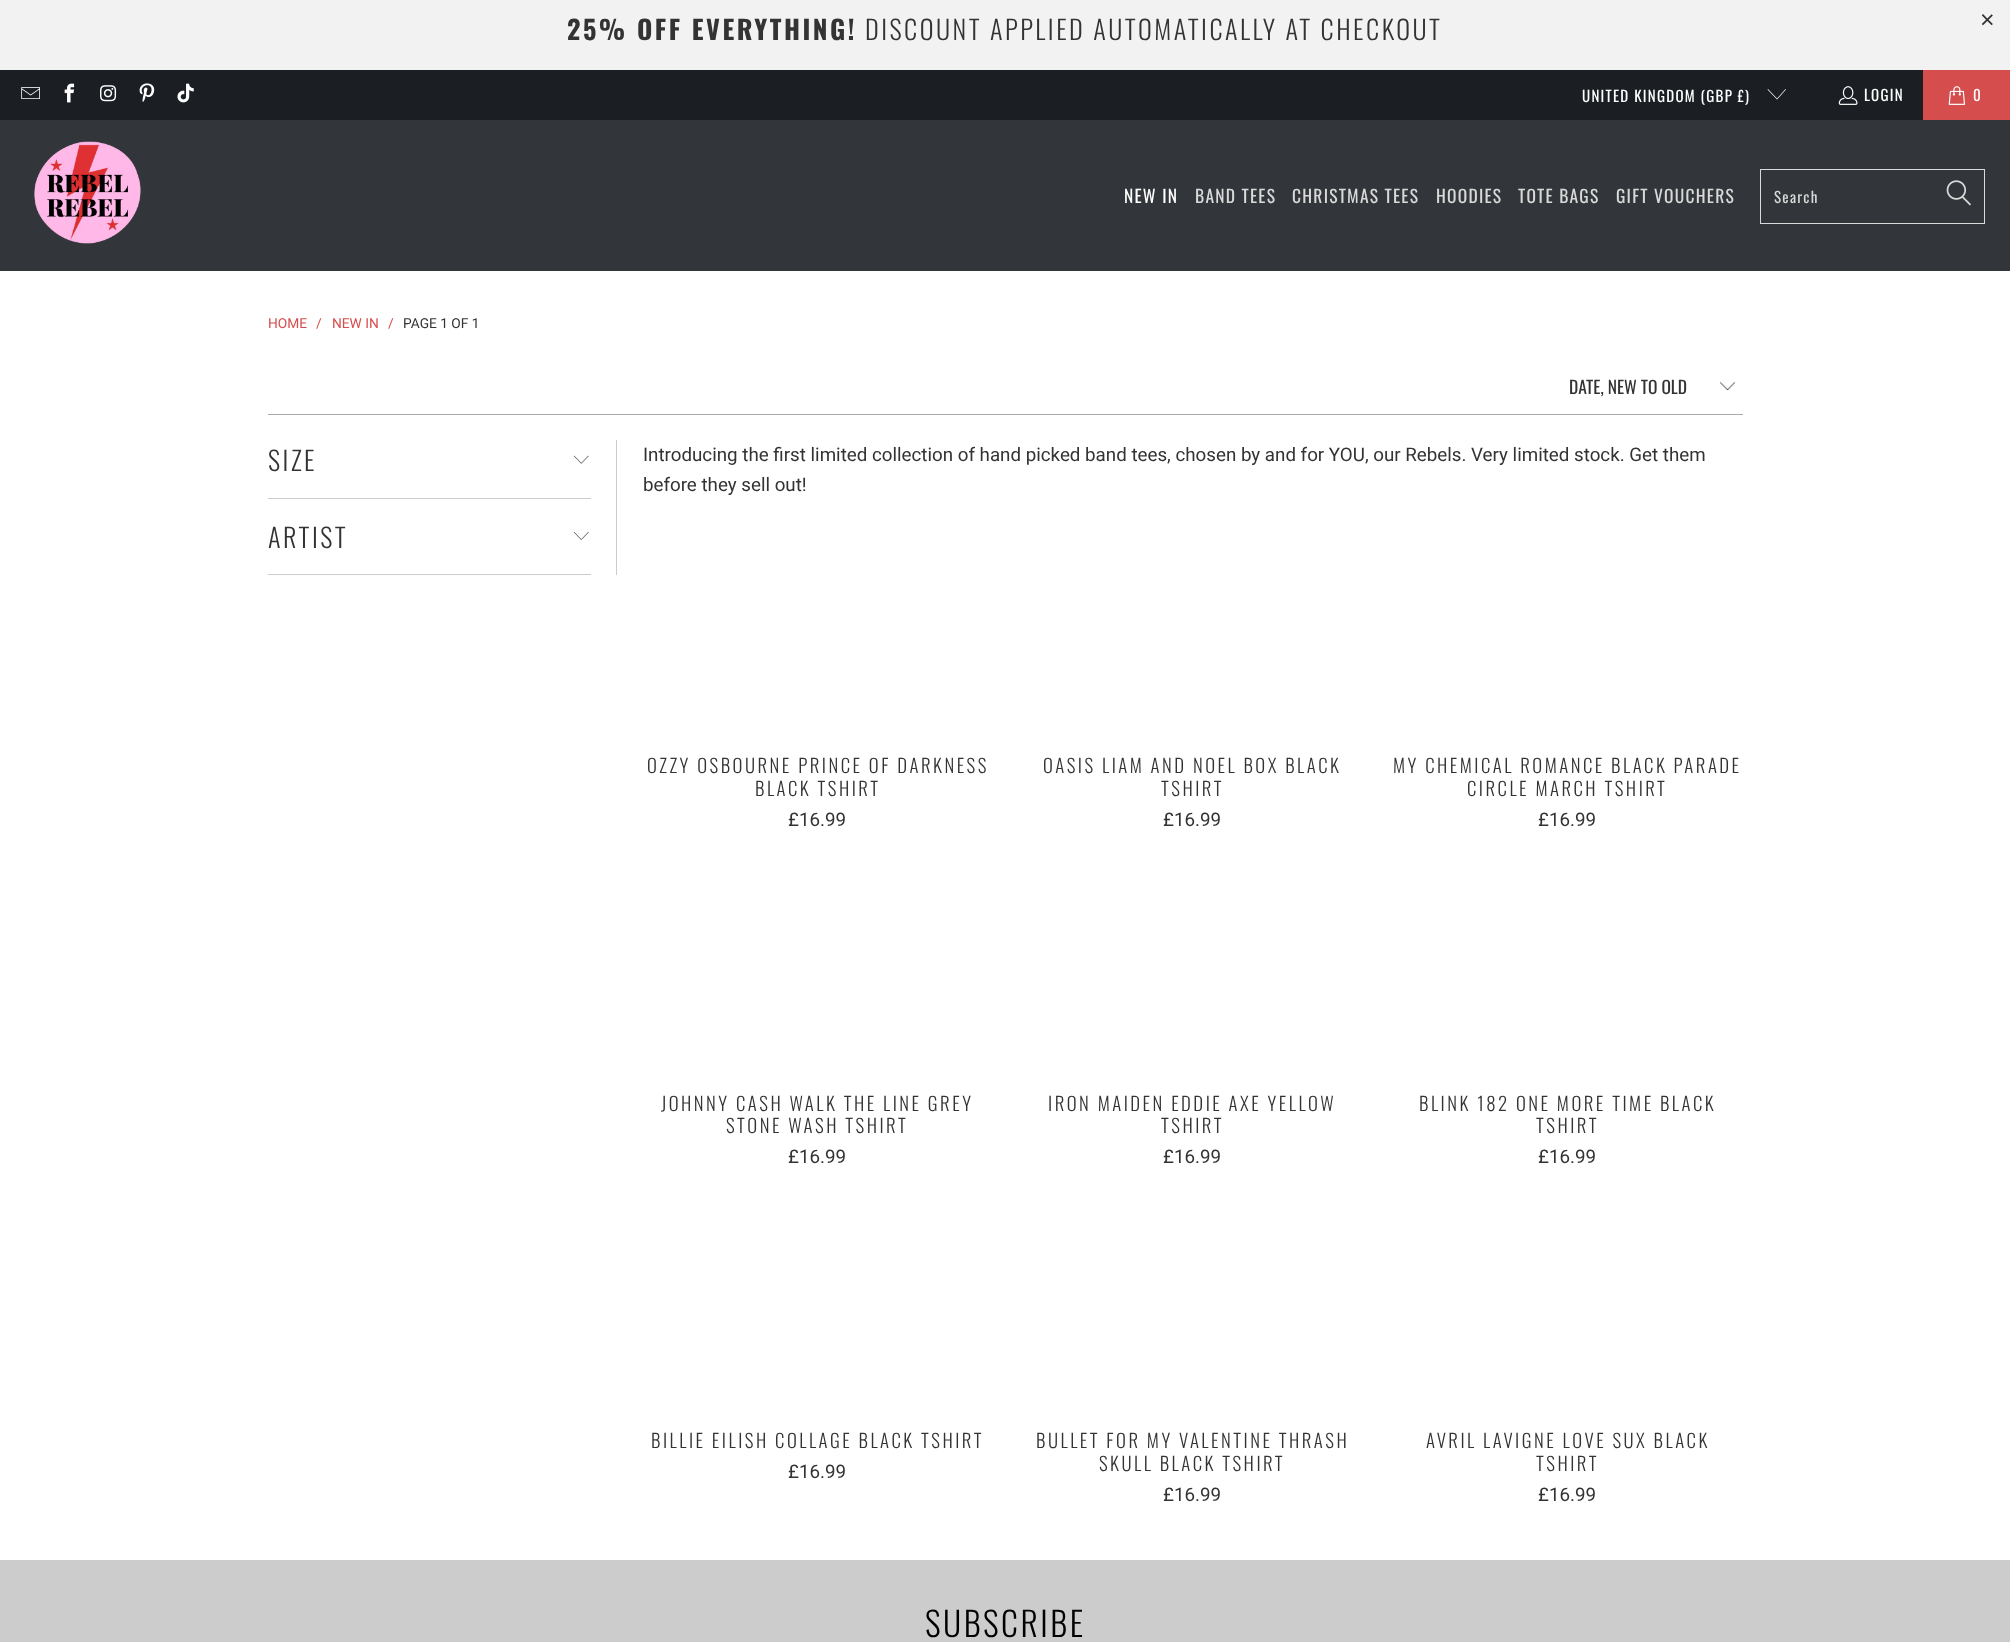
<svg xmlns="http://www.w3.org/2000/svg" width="2010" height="1642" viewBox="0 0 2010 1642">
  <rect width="100%" height="100%" fill="#ffffff"/>
  <rect x="0" y="0" width="2010" height="70" fill="#f2f2f2"/>
  <text x="567" y="40" font-family="Oswald" font-size="26.25" font-weight="bold" letter-spacing="2.5" fill="#333333">25% OFF EVERYTHING!</text>
  <text x="865" y="40" font-family="Oswald" font-size="26.25" font-weight="300" letter-spacing="2.5" fill="#333333">DISCOUNT APPLIED AUTOMATICALLY AT CHECKOUT</text>
  <text x="1980" y="28" font-family="Liberation Sans" font-size="25" letter-spacing="2.5" fill="#333333">×</text>
  <rect x="0" y="70" width="1923" height="50" fill="#1b1f23"/>
  <image x="21" y="87" width="19" height="12" href="img1.png"/>
  <image x="64" y="83" width="11" height="20" href="img2.png"/>
  <image x="100" y="85" width="17" height="17" href="img3.png"/>
  <image x="139" y="83" width="16" height="19" href="img4.png"/>
  <image x="177" y="83" width="17" height="20" href="img5.png"/>
  <text x="1582" y="102" font-family="Oswald" font-size="15" letter-spacing="1.25" fill="#ffffff">UNITED KINGDOM (GBP £)</text>
  <path d="M1777 99.5L1767.5 89.5L1768 89L1777 98.5L1785.5 89L1786 89.5Z" fill="#ffffff"/>
  <image x="1838" y="86" width="20" height="19" href="img6.png"/>
  <text x="1864" y="101" font-family="Oswald" font-size="15" letter-spacing="1.25" fill="#ffffff">LOGIN</text>
  <rect x="1923" y="70" width="87" height="50" fill="#d54d4d"/>
  <image x="1948" y="86" width="18" height="19" href="img7.png"/>
  <text x="1973" y="101" font-family="Oswald" font-size="15" letter-spacing="1.25" fill="#ffffff">0</text>
  <rect x="0" y="120" width="2010" height="151" fill="#323539"/>
  <image x="34" y="141" width="107" height="103" href="img8.png"/>
  <text x="1124" y="203" font-family="Oswald" font-size="17.5" letter-spacing="1.25" fill="#ffffff">NEW IN</text>
  <text x="1195" y="203" font-family="Oswald" font-size="17.5" letter-spacing="1.25" fill="#d9d9d9">BAND TEES</text>
  <text x="1292" y="203" font-family="Oswald" font-size="17.5" letter-spacing="1.25" fill="#d9d9d9">CHRISTMAS TEES</text>
  <text x="1436" y="203" font-family="Oswald" font-size="17.5" letter-spacing="1.25" fill="#d9d9d9">HOODIES</text>
  <text x="1518" y="203" font-family="Oswald" font-size="17.5" letter-spacing="1.25" fill="#d9d9d9">TOTE BAGS</text>
  <text x="1616" y="203" font-family="Oswald" font-size="17.5" letter-spacing="1.25" fill="#d9d9d9">GIFT VOUCHERS</text>
  <rect x="1760.5" y="169.5" width="224" height="54" fill="none" stroke="#d9d9d9"/>
  <text x="1774" y="203" font-family="Oswald" font-size="15" letter-spacing="1.25" fill="#d9d9d9">Search</text>
  <image x="1946" y="180" width="25" height="26" href="img9.png"/>
  <text x="268" y="328" font-family="Roboto" font-size="13.75" fill="#d54d4d">HOME</text>
  <text x="316" y="328" font-family="Roboto" font-size="13.75" fill="#d54d4d">/</text>
  <text x="332" y="328" font-family="Roboto" font-size="13.75" fill="#d54d4d">NEW IN</text>
  <text x="388" y="328" font-family="Roboto" font-size="13.75" fill="#d54d4d">/</text>
  <text x="403" y="328" font-family="Roboto" font-size="13.75" fill="#333333">PAGE 1 OF 1</text>
  <image x="1720" y="381" width="15" height="10" href="img10.png"/>
  <text x="1569" y="394" font-family="Oswald" font-size="17.5" fill="#333333">DATE, NEW TO OLD</text>
  <rect x="268" y="414" width="1475" height="1" fill="#aaaaaa"/>
  <rect x="616" y="440" width="1" height="135" fill="#cccccc"/>
  <text x="268" y="471" font-family="Oswald" font-size="26.25" font-weight="300" letter-spacing="2.5" fill="#333333">SIZE</text>
  <image x="573" y="455" width="16" height="9" href="img11.png"/>
  <rect x="268" y="498" width="323" height="1" fill="#cccccc"/>
  <text x="268" y="548" font-family="Oswald" font-size="26.25" font-weight="300" letter-spacing="2.5" fill="#333333">ARTIST</text>
  <image x="573" y="532" width="16" height="8" href="img12.png"/>
  <rect x="268" y="574" width="323" height="1" fill="#cccccc"/>
  <text x="643" y="461" font-family="Roboto" font-size="18.75" fill="#333333">Introducing the first limited collection of hand picked band tees, chosen by and for YOU, our Rebels. Very limited stock. Get them</text>
  <text x="643" y="491" font-family="Roboto" font-size="18.75" fill="#333333">before they sell out!</text>
  <text x="647" y="773" font-family="Oswald" font-size="18.75" font-weight="300" letter-spacing="2.5" fill="#333333">OZZY OSBOURNE PRINCE OF DARKNESS</text>
  <text x="755" y="796" font-family="Oswald" font-size="18.75" font-weight="300" letter-spacing="2.5" fill="#333333">BLACK TSHIRT</text>
  <text x="788" y="826" font-family="Roboto" font-size="18.75" fill="#333333">£16.99</text>
  <text x="1043" y="773" font-family="Oswald" font-size="18.75" font-weight="300" letter-spacing="2.5" fill="#333333">OASIS LIAM AND NOEL BOX BLACK</text>
  <text x="1161" y="796" font-family="Oswald" font-size="18.75" font-weight="300" letter-spacing="2.5" fill="#333333">TSHIRT</text>
  <text x="1163" y="826" font-family="Roboto" font-size="18.75" fill="#333333">£16.99</text>
  <text x="1393" y="773" font-family="Oswald" font-size="18.75" font-weight="300" letter-spacing="2.5" fill="#333333">MY CHEMICAL ROMANCE BLACK PARADE</text>
  <text x="1467" y="796" font-family="Oswald" font-size="18.75" font-weight="300" letter-spacing="2.5" fill="#333333">CIRCLE MARCH TSHIRT</text>
  <text x="1538" y="826" font-family="Roboto" font-size="18.75" fill="#333333">£16.99</text>
  <text x="661" y="1111" font-family="Oswald" font-size="18.75" font-weight="300" letter-spacing="2.5" fill="#333333">JOHNNY CASH WALK THE LINE GREY</text>
  <text x="726" y="1133" font-family="Oswald" font-size="18.75" font-weight="300" letter-spacing="2.5" fill="#333333">STONE WASH TSHIRT</text>
  <text x="788" y="1163" font-family="Roboto" font-size="18.75" fill="#333333">£16.99</text>
  <text x="1048" y="1111" font-family="Oswald" font-size="18.75" font-weight="300" letter-spacing="2.5" fill="#333333">IRON MAIDEN EDDIE AXE YELLOW</text>
  <text x="1161" y="1133" font-family="Oswald" font-size="18.75" font-weight="300" letter-spacing="2.5" fill="#333333">TSHIRT</text>
  <text x="1163" y="1163" font-family="Roboto" font-size="18.75" fill="#333333">£16.99</text>
  <text x="1419" y="1111" font-family="Oswald" font-size="18.75" font-weight="300" letter-spacing="2.5" fill="#333333">BLINK 182 ONE MORE TIME BLACK</text>
  <text x="1536" y="1133" font-family="Oswald" font-size="18.75" font-weight="300" letter-spacing="2.5" fill="#333333">TSHIRT</text>
  <text x="1538" y="1163" font-family="Roboto" font-size="18.75" fill="#333333">£16.99</text>
  <text x="651" y="1448" font-family="Oswald" font-size="18.75" font-weight="300" letter-spacing="2.5" fill="#333333">BILLIE EILISH COLLAGE BLACK TSHIRT</text>
  <text x="788" y="1478" font-family="Roboto" font-size="18.75" fill="#333333">£16.99</text>
  <text x="1036" y="1448" font-family="Oswald" font-size="18.75" font-weight="300" letter-spacing="2.5" fill="#333333">BULLET FOR MY VALENTINE THRASH</text>
  <text x="1099" y="1471" font-family="Oswald" font-size="18.75" font-weight="300" letter-spacing="2.5" fill="#333333">SKULL BLACK TSHIRT</text>
  <text x="1163" y="1501" font-family="Roboto" font-size="18.75" fill="#333333">£16.99</text>
  <text x="1426" y="1448" font-family="Oswald" font-size="18.75" font-weight="300" letter-spacing="2.5" fill="#333333">AVRIL LAVIGNE LOVE SUX BLACK</text>
  <text x="1536" y="1471" font-family="Oswald" font-size="18.75" font-weight="300" letter-spacing="2.5" fill="#333333">TSHIRT</text>
  <text x="1538" y="1501" font-family="Roboto" font-size="18.75" fill="#333333">£16.99</text>
  <rect x="0" y="1560" width="2010" height="82" fill="#cccccc"/>
  <text x="925" y="1637" font-family="Oswald" font-size="33.75" font-weight="300" letter-spacing="2.5" fill="#000000">SUBSCRIBE</text>
</svg>
